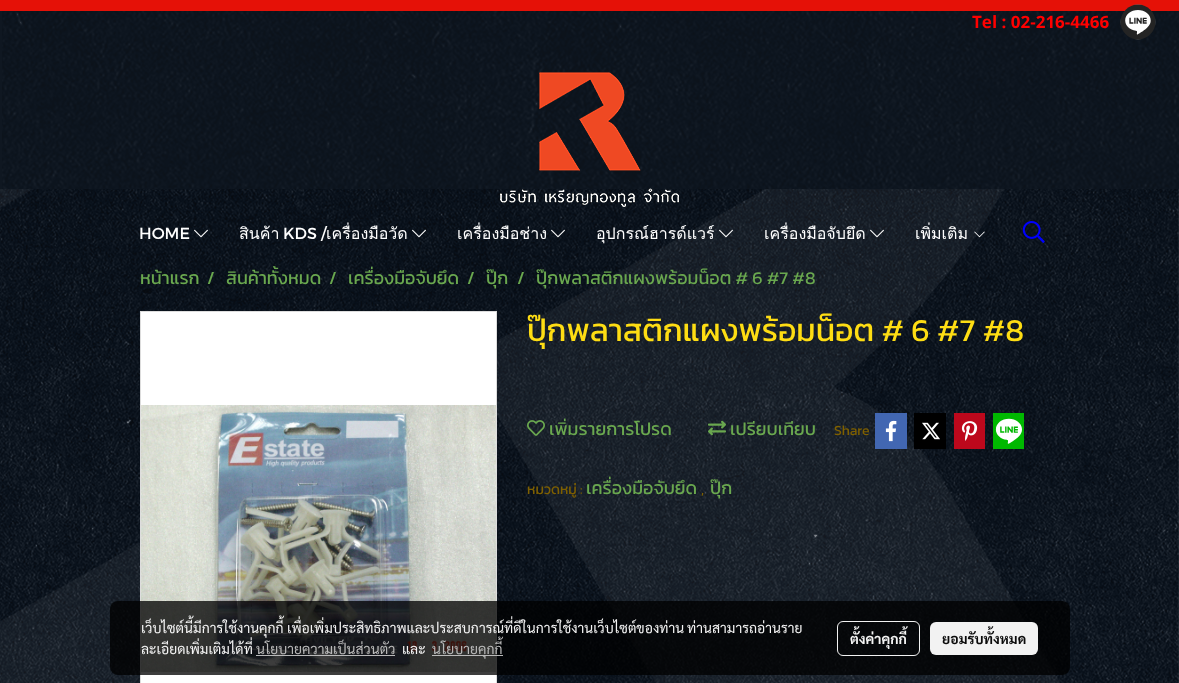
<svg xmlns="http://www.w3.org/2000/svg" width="1179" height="683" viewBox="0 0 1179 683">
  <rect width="100%" height="100%" fill="#ffffff"/>
  <image x="0" y="189" width="1179" height="494" href="img1.png"/>
  <image x="0" y="0" width="1179" height="189" href="img2.png"/>
  <text x="972" y="28" font-family="Open Sans" font-size="17" font-weight="bold" fill="#ff0000">Tel : 02-216-4466</text>
  <path d="M1138 4.5C1128.5 4.5 1120.5 12.5 1120.5 22C1120.5 31.5 1128.5 39.5 1138 39.5C1147.5 39.5 1155.5 31.5 1155.5 22C1155.5 12.5 1147.5 4.5 1138 4.5Z" fill="#242424"/>
  <image x="1120" y="4" width="36" height="36" href="img3.png"/>
  <image x="500" y="72" width="179" height="135" href="img4.png"/>
  <text x="139" y="239" font-family="Montserrat" font-size="16" fill="#ffffff">HOME</text>
  <image x="194" y="229" width="14" height="9" href="img5.png"/>
  <text x="239" y="239" font-family="Loma" font-size="16" fill="#ffffff">สินค้า</text>
  <text x="283" y="239" font-family="Montserrat" font-size="16" fill="#ffffff">KDS /</text>
  <text x="326" y="239" font-family="Loma" font-size="16" fill="#ffffff">เครื่องมือวัด</text>
  <image x="412" y="229" width="14" height="9" href="img6.png"/>
  <text x="457" y="239" font-family="Loma" font-size="16" fill="#ffffff">เครื่องมือช่าง</text>
  <image x="551" y="229" width="14" height="9" href="img7.png"/>
  <text x="596" y="239" font-family="Loma" font-size="16" fill="#ffffff">อุปกรณ์ฮารด์แวร์</text>
  <image x="719" y="229" width="14" height="9" href="img8.png"/>
  <text x="764" y="239" font-family="Loma" font-size="16" fill="#ffffff">เครื่องมือจับยึด</text>
  <image x="870" y="229" width="14" height="9" href="img9.png"/>
  <text x="915" y="239" font-family="Loma" font-size="16" fill="#ffffff">เพิ่มเติม</text>
  <image x="974" y="231" width="11" height="7" href="img10.png"/>
  <image x="1022" y="221" width="23" height="22" href="img11.png"/>
  <text x="140" y="284" font-family="Kanit" font-size="18" fill="#6aa84f">หน้าแรก</text>
  <text x="207" y="284" font-family="Kanit" font-size="18" fill="#6aa84f">/</text>
  <text x="226" y="284" font-family="Kanit" font-size="18" fill="#6aa84f">สินค้าทั้งหมด</text>
  <text x="329" y="284" font-family="Kanit" font-size="18" fill="#6aa84f">/</text>
  <text x="348" y="284" font-family="Kanit" font-size="18" fill="#6aa84f">เครื่องมือจับยึด</text>
  <text x="467" y="284" font-family="Kanit" font-size="18" fill="#6aa84f">/</text>
  <text x="486" y="284" font-family="Kanit" font-size="18" fill="#6aa84f">ปุ๊ก</text>
  <text x="517" y="284" font-family="Kanit" font-size="18" fill="#6aa84f">/</text>
  <text x="536" y="284" font-family="Kanit" font-size="18" fill="#6aa84f">ปุ๊กพลาสติกแผงพร้อมน็อต # 6 #7 #8</text>
  <rect x="140.5" y="311.5" width="356" height="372" fill="#ffffff" stroke="#dddddd"/>
  <image x="141" y="405" width="355" height="267" href="img12.png"/>
  <text x="527" y="341" font-family="Kanit" font-size="32" fill="#fedd13">ปุ๊กพลาสติกแผงพร้อมน็อต # 6 #7 #8</text>
  <image x="527" y="420" width="18" height="16" href="img13.png"/>
  <text x="549" y="435" font-family="Kanit" font-size="18" fill="#6aa84f">เพิ่มรายการโปรด</text>
  <rect x="691" y="420" width="1" height="21" fill="#000000" fill-opacity="0.13"/>
  <image x="708" y="420" width="18" height="16" href="img14.png"/>
  <text x="730" y="435" font-family="Kanit" font-size="18" fill="#6aa84f">เปรียบเทียบ</text>
  <text x="834" y="435" font-family="Kanit" font-size="14" fill="#7f6000">Share</text>
  <rect x="875" y="413" width="32" height="36" fill="#4267b2"/>
  <image x="885" y="420" width="12" height="22" href="img15.png"/>
  <rect x="914" y="413" width="32" height="36" fill="#000000"/>
  <image x="922" y="422" width="18" height="18" href="img16.png"/>
  <rect x="954" y="413" width="31" height="36" fill="#bd081c"/>
  <image x="961" y="421" width="17" height="20" href="img17.png"/>
  <rect x="993" y="413" width="31" height="36" fill="#00b800"/>
  <image x="995" y="418" width="27" height="26" href="img18.png"/>
  <text x="527" y="494" font-family="Kanit" font-size="14" fill="#7f6000">หมวดหมู่ :</text>
  <text x="586" y="494" font-family="Kanit" font-size="18" fill="#6aa84f">เครื่องมือจับยึด</text>
  <text x="701" y="494" font-family="Kanit" font-size="14" fill="#7f6000">,</text>
  <text x="710" y="494" font-family="Kanit" font-size="18" fill="#6aa84f">ปุ๊ก</text>
  <rect x="110" y="601" width="960" height="74" rx="8" fill="#000000" fill-opacity="0.76"/>
  <text x="141" y="633" font-family="Sarabun" font-size="14" fill="#f4f4f4">เว็บไซต์นี้มีการใช้งานคุกกี้ เพื่อเพิ่มประสิทธิภาพและประสบการณ์ที่ดีในการใช้งานเว็บไซต์ของท่าน</text>
  <text x="687" y="633" font-family="Sarabun" font-size="14" fill="#f4f4f4">ท่านสามารถอ่านราย</text>
  <text x="141" y="654" font-family="Sarabun" font-size="14" fill="#f4f4f4">ละเอียดเพิ่มเติมได้ที่</text>
  <text x="256" y="654" font-family="Sarabun" font-size="14" fill="#bababa">นโยบายความเป็นส่วนตัว</text>
  <rect x="256" y="655" width="139" height="1" fill="#c2c2c2" fill-opacity="0.95"/>
  <text x="402" y="654" font-family="Sarabun" font-size="14" fill="#f4f4f4">และ</text>
  <rect x="432" y="655" width="71" height="1" fill="#c2c2c2" fill-opacity="0.95"/>
  <text x="432" y="654" font-family="Sarabun" font-size="14" fill="#bababa">นโยบายคุกกี้</text>
  <rect x="837.5" y="621.5" width="82" height="34" rx="5.5" fill="none" stroke="#ffffff" stroke-opacity="0.95"/>
  <text x="850" y="644" font-family="Sarabun" font-size="14" font-weight="bold" fill="#f4f4f4">ตั้งค่าคุกกี้</text>
  <rect x="930" y="622" width="108" height="33" rx="6" fill="#ffffff" fill-opacity="0.95"/>
  <text x="942" y="644" font-family="Sarabun" font-size="14" font-weight="bold" fill="#0c0c0c">ยอมรับทั้งหมด</text>
</svg>
